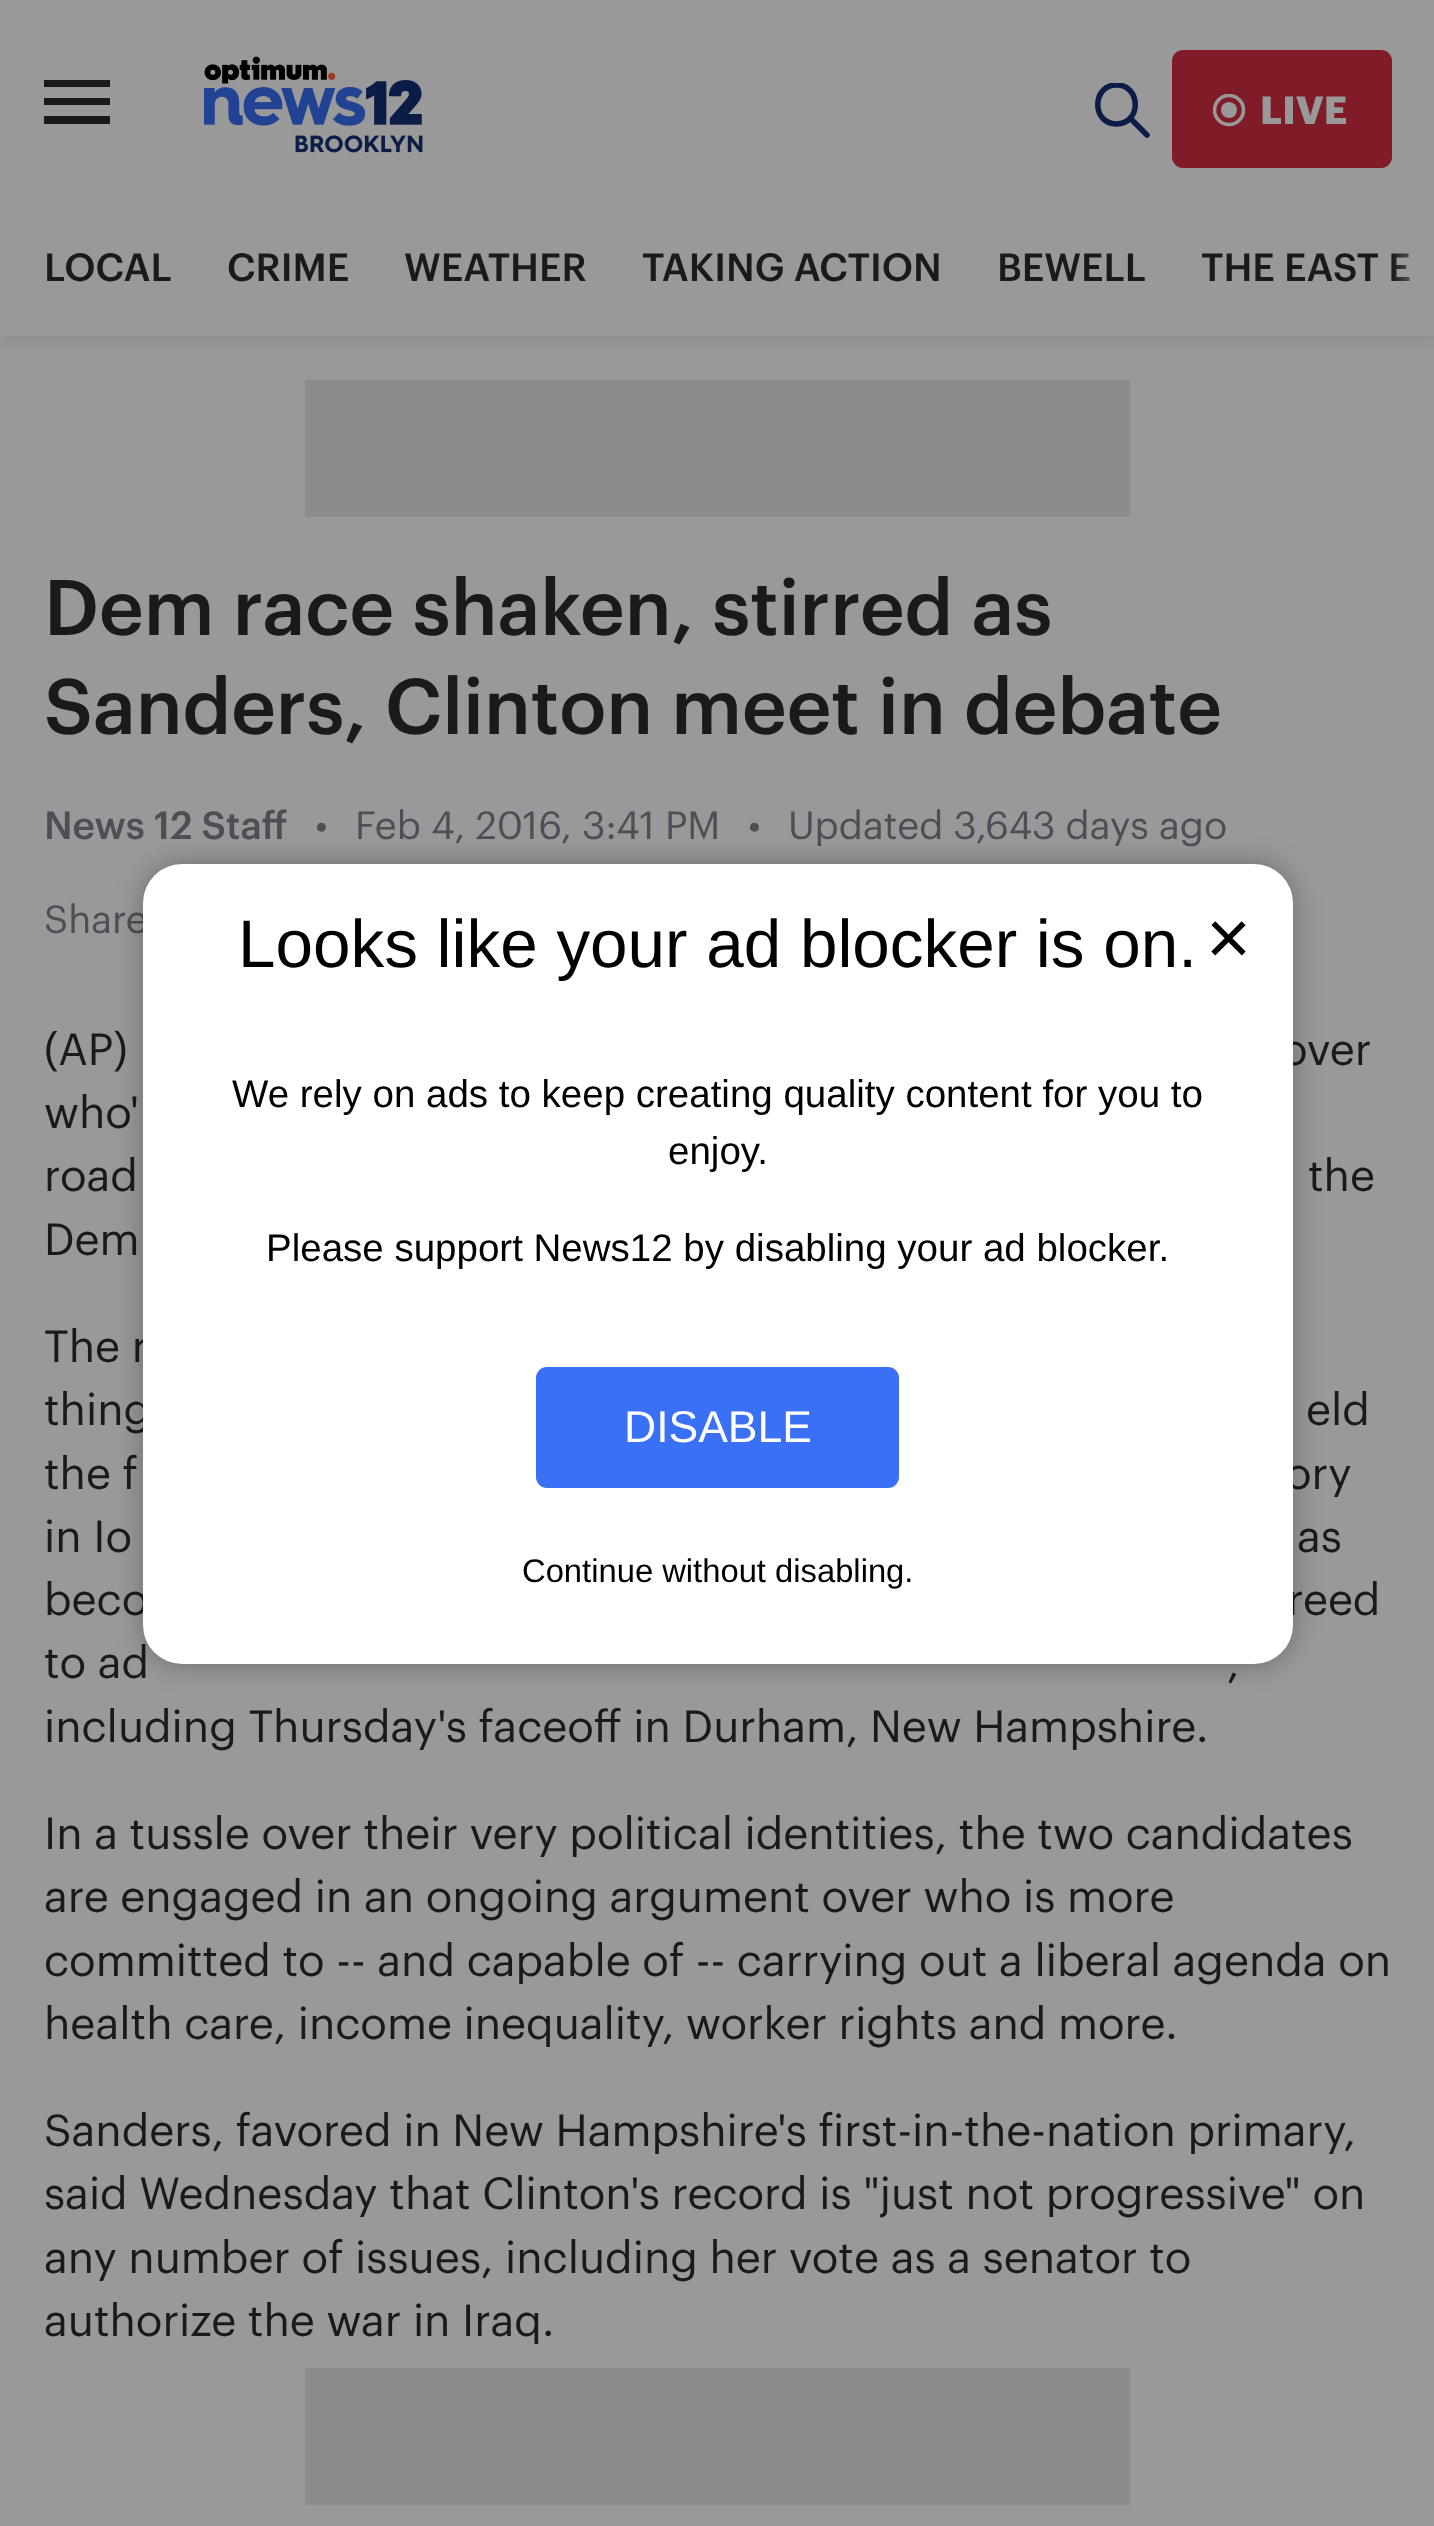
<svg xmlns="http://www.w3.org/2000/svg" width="1434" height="2526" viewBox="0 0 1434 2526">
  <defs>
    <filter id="blur1" x="-50%" y="-200%" width="200%" height="500%"><feGaussianBlur stdDeviation="14"/></filter>
    <clipPath id="clip1"><rect x="1095" y="83" width="55" height="55"/></clipPath>
    <clipPath id="clip2"><rect x="1213" y="94" width="33" height="33"/></clipPath>
    <linearGradient id="g1" gradientUnits="userSpaceOnUse" x1="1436" y1="268" x2="1392" y2="268"><stop offset="0" stop-color="#999999"/><stop offset="1" stop-color="#999999" stop-opacity="0"/></linearGradient>
  </defs>
  <rect width="100%" height="100%" fill="#999999"/>
  <rect x="0" y="-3" width="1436" height="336" fill="#000000" fill-opacity="0.15" filter="url(#blur1)"/>
  <rect x="0" y="0" width="1434" height="336" fill="#999999"/>
  <path d="M44 87V80H110V87ZM44 105H110V98H44ZM44 124H110V116H44Z" fill="#1a1a1a" fill-rule="evenodd"/>
  <image x="203" y="56" width="220" height="97" href="img1.png"/>
  <g clip-path="url(#clip1)">
    <path d="M1130 118L1147 135M1116.5 124C1091.5 124 1091.5 85 1116.5 85C1141.5 85 1141.5 124 1116.5 124Z" fill="none" stroke="#0b1d46" stroke-width="5.5" stroke-linecap="round" stroke-linejoin="round"/>
  </g>
  <rect x="1172" y="50" width="220" height="118" rx="11" fill="#7f1c28"/>
  <circle cx="1229" cy="110" r="8" fill="#999999"/>
  <g clip-path="url(#clip2)">
    <circle cx="1229" cy="110" r="14.5" fill="none" stroke="#999999" stroke-width="3.6"/>
  </g>
  <text x="1260" y="124" font-family="Graphik" font-size="38.5" font-weight="bold" fill="#999999">LIVE</text>
  <text x="44" y="281" font-family="Graphik" font-size="38.5" font-weight="500" fill="#1a1a1a">LOCAL</text>
  <text x="227" y="281" font-family="Graphik" font-size="38.5" font-weight="500" fill="#1a1a1a">CRIME</text>
  <text x="404" y="281" font-family="Graphik" font-size="38.5" font-weight="500" fill="#1a1a1a">WEATHER</text>
  <text x="642" y="281" font-family="Graphik" font-size="38.5" font-weight="500" fill="#1a1a1a">TAKING ACTION</text>
  <text x="997" y="281" font-family="Graphik" font-size="38.5" font-weight="500" fill="#1a1a1a">BEWELL</text>
  <text x="1201" y="281" font-family="Graphik" font-size="38.5" font-weight="500" fill="#1a1a1a">THE EAST E</text>
  <rect x="1393" y="253" width="16" height="28" fill="url(#g1)"/>
  <rect x="305" y="380" width="825" height="137" fill="#8c8c8c"/>
  <text x="44" y="635" font-family="Graphik" font-size="77" font-weight="500" fill="#1a1a1a">Dem race shaken, stirred as</text>
  <text x="44" y="734" font-family="Graphik" font-size="77" font-weight="500" fill="#1a1a1a">Sanders, Clinton meet in debate</text>
  <text x="44" y="839" font-family="Graphik" font-size="38.5" font-weight="500" fill="#4d4f56">News 12 Staff</text>
  <text x="315" y="839" font-family="Graphik" font-size="38.5" fill="#4d4f56">•</text>
  <text x="355" y="839" font-family="Graphik" font-size="38.5" fill="#4d4f56">Feb 4, 2016, 3:41 PM</text>
  <text x="748" y="839" font-family="Graphik" font-size="38.5" fill="#4d4f56">•</text>
  <text x="788" y="839" font-family="Graphik" font-size="38.5" fill="#4d4f56">Updated 3,643 days ago</text>
  <text x="44" y="933" font-family="Graphik" font-size="38.5" fill="#4d4f56">Share</text>
  <text x="44" y="1065" font-family="Graphik" font-size="44" fill="#1a1a1a">(AP)</text>
  <text x="1281" y="1065" font-family="Graphik" font-size="44" fill="#1a1a1a">over</text>
  <text x="44" y="1128" font-family="Graphik" font-size="44" fill="#1a1a1a">who'</text>
  <text x="44" y="1191" font-family="Graphik" font-size="44" fill="#1a1a1a">road</text>
  <text x="1308" y="1191" font-family="Graphik" font-size="44" fill="#1a1a1a">the</text>
  <text x="44" y="1255" font-family="Graphik" font-size="44" fill="#1a1a1a">Dem</text>
  <text x="44" y="1362" font-family="Graphik" font-size="44" fill="#1a1a1a">The r</text>
  <text x="44" y="1425" font-family="Graphik" font-size="44" fill="#1a1a1a">thing</text>
  <text x="1306" y="1425" font-family="Graphik" font-size="44" fill="#1a1a1a">eld</text>
  <text x="44" y="1489" font-family="Graphik" font-size="44" fill="#1a1a1a">the f</text>
  <text x="1285" y="1489" font-family="Graphik" font-size="44" fill="#1a1a1a">ory</text>
  <text x="44" y="1552" font-family="Graphik" font-size="44" fill="#1a1a1a">in Io</text>
  <text x="1297" y="1552" font-family="Graphik" font-size="44" fill="#1a1a1a">as</text>
  <text x="44" y="1615" font-family="Graphik" font-size="44" fill="#1a1a1a">beco</text>
  <text x="1287" y="1615" font-family="Graphik" font-size="44" fill="#1a1a1a">reed</text>
  <text x="44" y="1678" font-family="Graphik" font-size="44" fill="#1a1a1a">to ad</text>
  <text x="1227" y="1678" font-family="Graphik" font-size="44" fill="#1a1a1a">,</text>
  <text x="44" y="1742" font-family="Graphik" font-size="44" fill="#1a1a1a">including Thursday's faceoff in Durham, New Hampshire.</text>
  <text x="44" y="1849" font-family="Graphik" font-size="44" fill="#1a1a1a">In a tussle over their very political identities, the two candidates</text>
  <text x="44" y="1912" font-family="Graphik" font-size="44" fill="#1a1a1a">are engaged in an ongoing argument over who is more</text>
  <text x="44" y="1976" font-family="Graphik" font-size="44" fill="#1a1a1a">committed to -- and capable of -- carrying out a liberal agenda on</text>
  <text x="44" y="2039" font-family="Graphik" font-size="44" fill="#1a1a1a">health care, income inequality, worker rights and more.</text>
  <text x="44" y="2146" font-family="Graphik" font-size="44" fill="#1a1a1a">Sanders, favored in New Hampshire's first-in-the-nation primary,</text>
  <text x="44" y="2209" font-family="Graphik" font-size="44" fill="#1a1a1a">said Wednesday that Clinton's record is "just not progressive" on</text>
  <text x="44" y="2273" font-family="Graphik" font-size="44" fill="#1a1a1a">any number of issues, including her vote as a senator to</text>
  <text x="44" y="2336" font-family="Graphik" font-size="44" fill="#1a1a1a">authorize the war in Iraq.</text>
  <rect x="305" y="2368" width="825" height="137" fill="#8c8c8c"/>
  <rect x="143" y="864" width="1150" height="800" rx="39" fill="#000000" fill-opacity="0.3" filter="url(#blur1)"/>
  <rect x="143" y="864" width="1150" height="800" rx="39" fill="#ffffff"/>
  <text x="238" y="967" font-family="Liberation Sans" font-size="67.4" fill="#000000">Looks like your ad blocker is on.</text>
  <text x="1206" y="964" font-family="Liberation Sans" font-size="77" fill="#000000">×</text>
  <text x="232" y="1107" font-family="Liberation Sans" font-size="38.5" fill="#000000">We rely on ads to keep creating quality content for you to</text>
  <text x="668" y="1164" font-family="Liberation Sans" font-size="38.5" fill="#000000">enjoy.</text>
  <text x="266" y="1261" font-family="Liberation Sans" font-size="38.5" fill="#000000">Please support News12 by disabling your ad blocker.</text>
  <rect x="536" y="1367" width="363" height="121" rx="11" fill="#3970f6"/>
  <text x="624" y="1442" font-family="Liberation Sans" font-size="44.5" fill="#ffffff">DISABLE</text>
  <text x="522" y="1582" font-family="Liberation Sans" font-size="32.75" fill="#000000">Continue without disabling.</text>
</svg>
